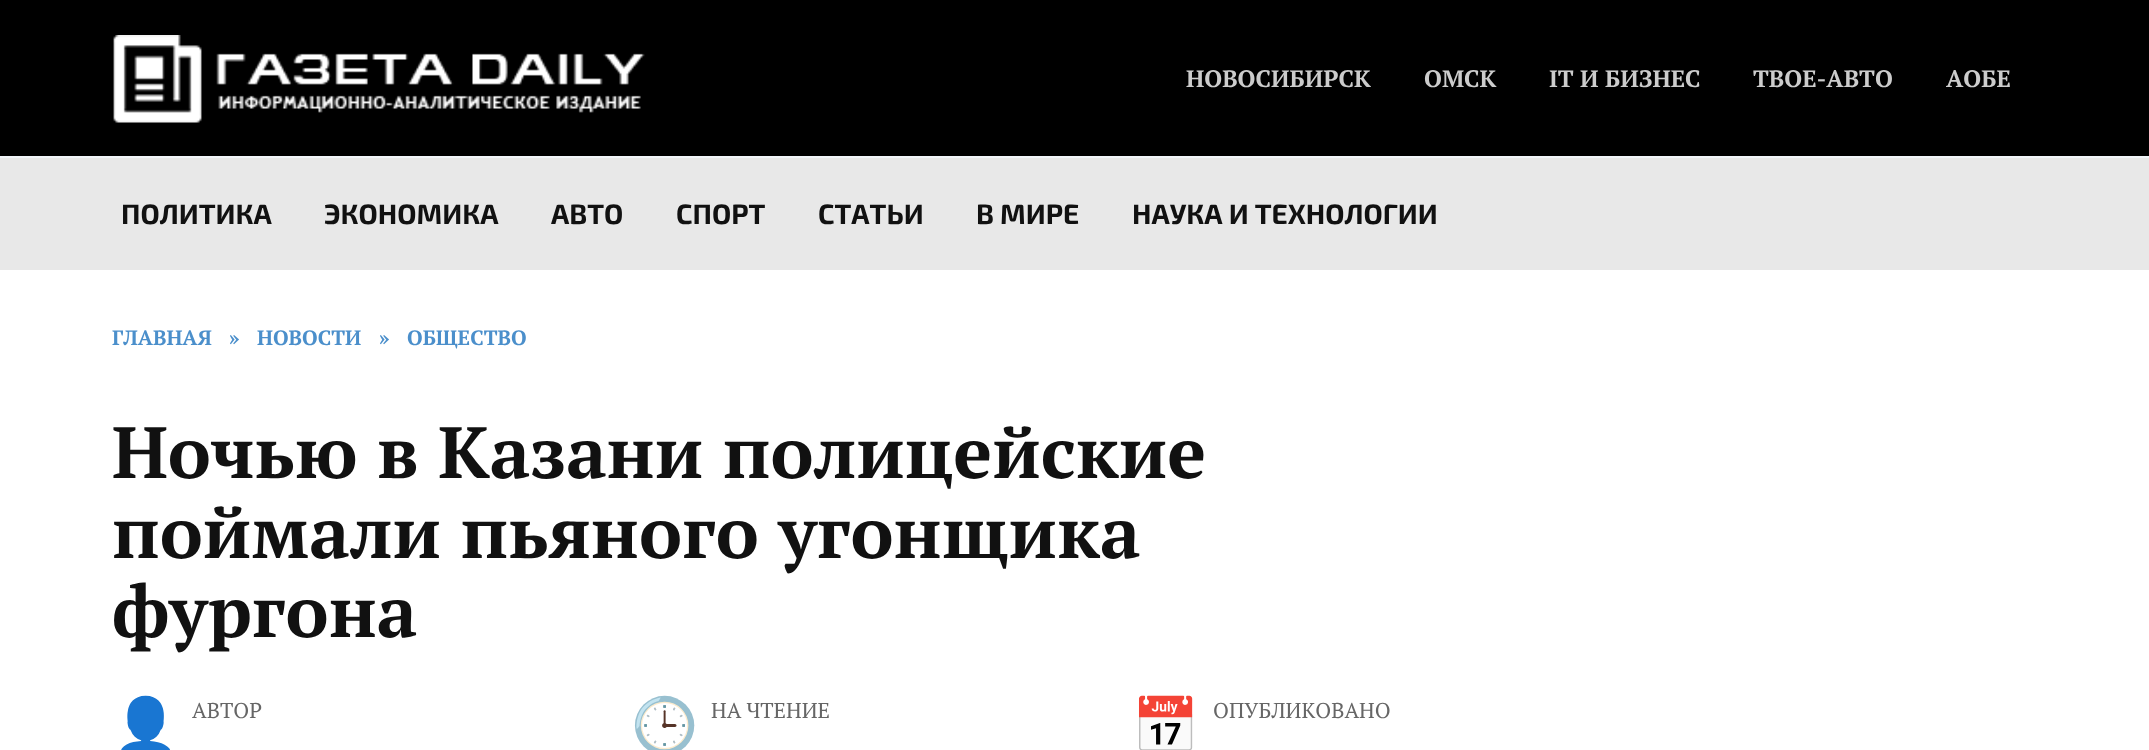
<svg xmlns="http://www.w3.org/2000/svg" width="2149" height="750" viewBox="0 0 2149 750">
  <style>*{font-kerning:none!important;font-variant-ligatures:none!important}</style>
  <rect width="100%" height="100%" fill="#ffffff"/>
  <rect x="0" y="0" width="2149" height="156" fill="#000000"/>
  <rect x="0" y="156" width="2149" height="2" fill="#f2f5f9"/>
  <image x="113" y="35" width="532" height="88" href="img1.png"/>
  <text x="1186" y="87" font-family="PT Serif" font-size="23.75" font-weight="bold" fill="#cccccc">НОВОСИБИРСК</text>
  <text x="1424" y="87" font-family="PT Serif" font-size="23.75" font-weight="bold" fill="#cccccc">ОМСК</text>
  <text x="1549" y="87" font-family="PT Serif" font-size="23.75" font-weight="bold" fill="#cccccc">IT И БИЗНЕС</text>
  <text x="1753" y="87" font-family="PT Serif" font-size="23.75" font-weight="bold" fill="#cccccc">ТВОЕ-АВТО</text>
  <text x="1946" y="87" font-family="PT Serif" font-size="23.75" font-weight="bold" fill="#cccccc">АОБЕ</text>
  <rect x="0" y="158" width="2149" height="112" fill="#e8e8e8"/>
  <text x="121" y="224" font-family="'Exo 2'" font-size="28" font-weight="bold" fill="#111111">ПОЛИТИКА</text>
  <text x="324" y="224" font-family="'Exo 2'" font-size="28" font-weight="bold" fill="#111111">ЭКОНОМИКА</text>
  <text x="551" y="224" font-family="'Exo 2'" font-size="28" font-weight="bold" fill="#111111">АВТО</text>
  <text x="676" y="224" font-family="'Exo 2'" font-size="28" font-weight="bold" fill="#111111">СПОРТ</text>
  <text x="818" y="224" font-family="'Exo 2'" font-size="28" font-weight="bold" fill="#111111">СТАТЬИ</text>
  <text x="976" y="224" font-family="'Exo 2'" font-size="28" font-weight="bold" fill="#111111">В МИРЕ</text>
  <text x="1132" y="224" font-family="'Exo 2'" font-size="28" font-weight="bold" fill="#111111">НАУКА И ТЕХНОЛОГИИ</text>
  <text x="112" y="345" font-family="PT Serif" font-size="20.75" font-weight="bold" fill="#4b8fcb">ГЛАВНАЯ</text>
  <text x="229" y="345" font-family="PT Serif" font-size="20.75" font-weight="bold" fill="#4b8fcb">»</text>
  <text x="257" y="345" font-family="PT Serif" font-size="20.75" font-weight="bold" fill="#4b8fcb">НОВОСТИ</text>
  <text x="379" y="345" font-family="PT Serif" font-size="20.75" font-weight="bold" fill="#4b8fcb">»</text>
  <text x="407" y="345" font-family="PT Serif" font-size="20.75" font-weight="bold" fill="#4b8fcb">ОБЩЕСТВО</text>
  <text x="112" y="478" font-family="PT Serif" font-size="72.5" font-weight="bold" fill="#111111">Ночью в Казани полицейские</text>
  <text x="112" y="558" font-family="PT Serif" font-size="72.5" font-weight="bold" fill="#111111">поймали пьяного угонщика</text>
  <text x="112" y="637" font-family="PT Serif" font-size="72.5" font-weight="bold" fill="#111111">фургона</text>
  <text x="112" y="744" font-family="Noto Color Emoji" font-size="54" fill="#1e73be">👤</text>
  <text x="192" y="718" font-family="PT Serif" font-size="21.5" fill="#666666">АВТОР</text>
  <text x="631" y="744" font-family="Noto Color Emoji" font-size="54" fill="#1e73be">🕒</text>
  <text x="711" y="718" font-family="PT Serif" font-size="21.5" fill="#666666">НА ЧТЕНИЕ</text>
  <text x="1132" y="744" font-family="Noto Color Emoji" font-size="54" fill="#1e73be">📅</text>
  <text x="1213" y="718" font-family="PT Serif" font-size="21.5" fill="#666666">ОПУБЛИКОВАНО</text>
</svg>
